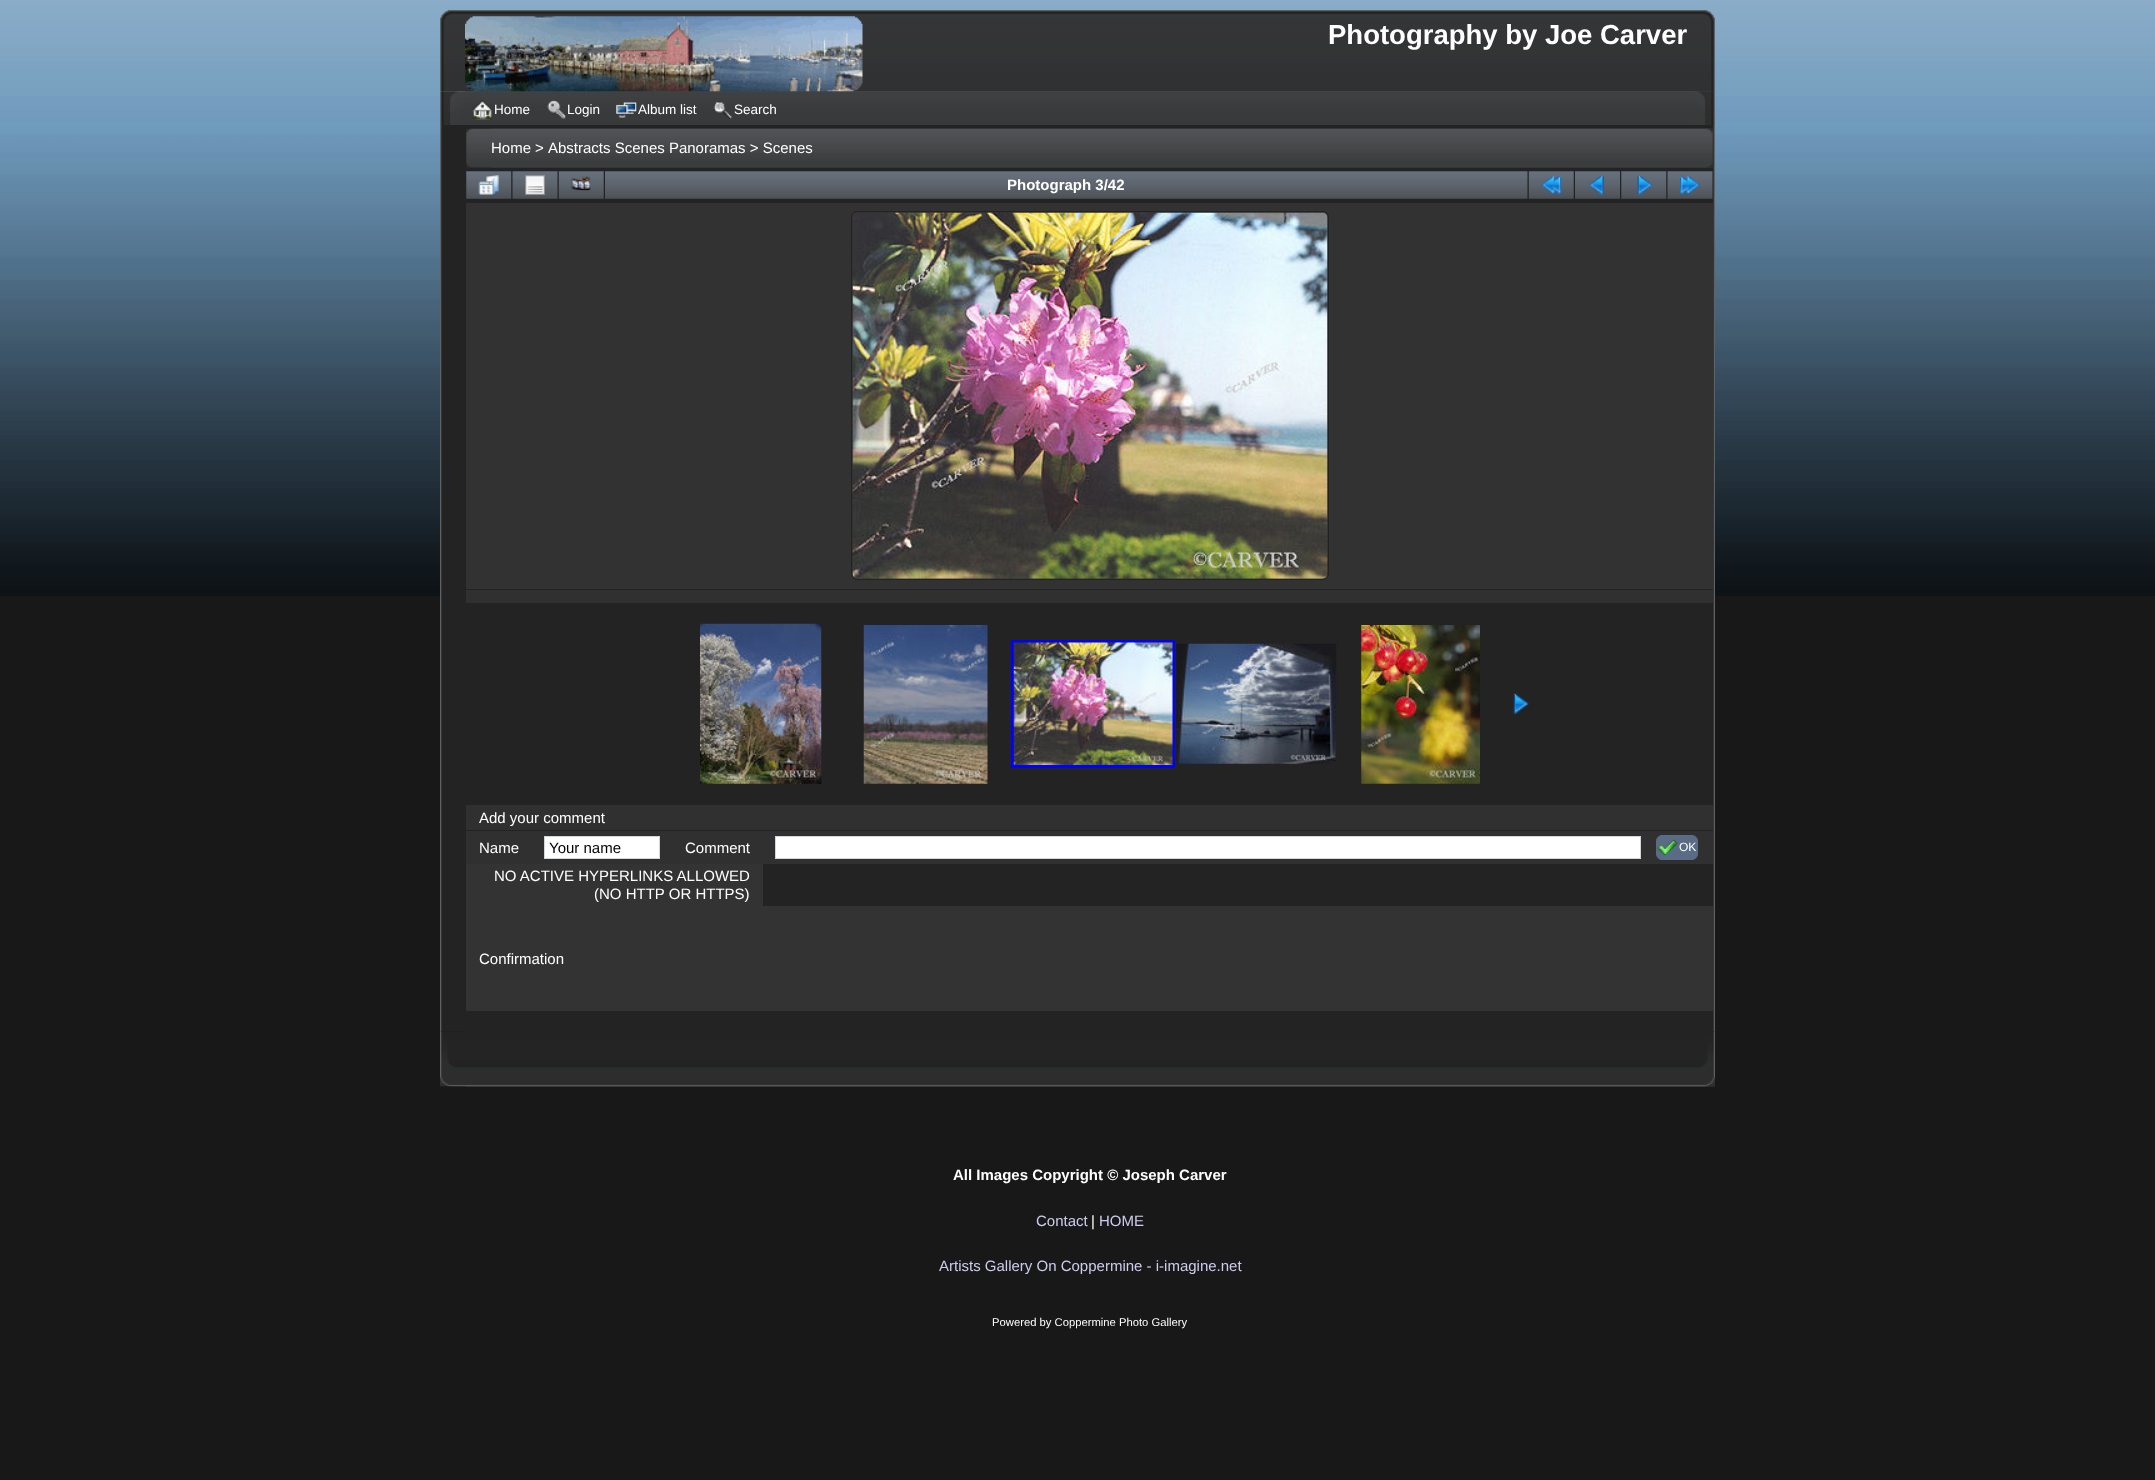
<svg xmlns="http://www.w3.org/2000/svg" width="2155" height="1480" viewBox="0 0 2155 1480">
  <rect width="100%" height="100%" fill="#181818"/>
  <image x="0" y="0" width="2155" height="596" href="img1.png"/>
  <image x="440" y="10" width="1275" height="82" href="img2.png"/>
  <image x="465" y="10" width="1250" height="82" href="img3.png"/>
  <image x="440" y="91" width="1275" height="34" href="img5.png"/>
  <image x="465" y="91" width="1250" height="34" href="img6.png"/>
  <image x="465" y="16" width="398" height="76" href="img4.png"/>
  <text x="1328" y="44" font-family="Liberation Sans" font-size="27.5" font-weight="bold" fill="#ffffff">Photography by Joe Carver</text>
  <image x="472" y="100" width="21" height="20" href="img7.png"/>
  <text x="494" y="114" font-family="Liberation Sans" font-size="13.5" fill="#ffffff">Home</text>
  <image x="547" y="100" width="19" height="20" href="img8.png"/>
  <text x="567" y="114" font-family="Liberation Sans" font-size="13.5" fill="#ffffff">Login</text>
  <image x="616" y="102" width="21" height="16" href="img9.png"/>
  <text x="638" y="114" font-family="Liberation Sans" font-size="13.5" fill="#ffffff">Album list</text>
  <image x="713" y="101" width="20" height="18" href="img10.png"/>
  <text x="734" y="114" font-family="Liberation Sans" font-size="13.5" fill="#ffffff">Search</text>
  <rect x="442" y="125" width="1271" height="906" fill="#232323"/>
  <image x="440" y="125" width="2" height="907" href="img11.png"/>
  <image x="1713" y="125" width="2" height="907" href="img12.png"/>
  <image x="466" y="128" width="1247" height="40" href="img13.png"/>
  <image x="491" y="128" width="1222" height="40" href="img14.png"/>
  <text x="491" y="153" font-family="Liberation Sans" font-size="15" fill="#ffffff">Home</text>
  <text x="535" y="153" font-family="Liberation Sans" font-size="15" fill="#ffffff">&gt;</text>
  <text x="548" y="153" font-family="Liberation Sans" font-size="15" fill="#ffffff">Abstracts Scenes Panoramas &gt; Scenes</text>
  <image x="466" y="171" width="46" height="28" href="img15.png"/>
  <image x="478" y="175" width="21" height="20" href="img16.png"/>
  <image x="512" y="171" width="46" height="28" href="img17.png"/>
  <image x="525" y="175" width="20" height="20" href="img18.png"/>
  <image x="558" y="171" width="46" height="28" href="img19.png"/>
  <image x="571" y="176" width="20" height="15" href="img20.png"/>
  <image x="605" y="171" width="923" height="28" href="img21.png"/>
  <text x="1007" y="190" font-family="Liberation Sans" font-size="15" font-weight="bold" fill="#ffffff">Photograph 3/42</text>
  <image x="1528" y="171" width="46" height="28" href="img19.png"/>
  <image x="1541" y="175" width="21" height="20" href="img22.png"/>
  <image x="1575" y="171" width="45" height="28" href="img23.png"/>
  <image x="1588" y="175" width="16" height="20" href="img24.png"/>
  <image x="1621" y="171" width="46" height="28" href="img15.png"/>
  <image x="1637" y="175" width="16" height="20" href="img25.png"/>
  <image x="1667" y="171" width="46" height="28" href="img17.png"/>
  <image x="1680" y="175" width="20" height="20" href="img26.png"/>
  <rect x="466" y="203" width="1247" height="386" fill="#323232"/>
  <rect x="851.5" y="211.5" width="477" height="368" rx="5.5" fill="none" stroke="#232323"/>
  <image x="852" y="212" width="476" height="367" href="img27.png"/>
  <rect x="466" y="590" width="1247" height="13" fill="#303030"/>
  <image x="700" y="623" width="122" height="161" href="img28.png"/>
  <image x="863" y="625" width="125" height="159" href="img29.png"/>
  <rect x="1012.5" y="641.5" width="161" height="125" fill="none" stroke="#0000ff" stroke-width="3"/>
  <image x="1013" y="642" width="160" height="123" href="img30.png"/>
  <image x="1176" y="643" width="161" height="121" href="img31.png"/>
  <image x="1361" y="625" width="119" height="159" href="img32.png"/>
  <image x="1513" y="693" width="16" height="21" href="img33.png"/>
  <rect x="466" y="805" width="1247" height="25" fill="#303030"/>
  <text x="479" y="823" font-family="Liberation Sans" font-size="15" fill="#ffffff">Add your comment</text>
  <rect x="466" y="831" width="1247" height="33" fill="#303030"/>
  <text x="479" y="853" font-family="Liberation Sans" font-size="15" fill="#ffffff">Name</text>
  <rect x="544.5" y="836.5" width="115" height="22" fill="#ffffff" stroke="#d1d7dc"/>
  <text x="549" y="853" font-family="Liberation Sans" font-size="15" fill="#000000">Your name</text>
  <text x="685" y="853" font-family="Liberation Sans" font-size="15" fill="#ffffff">Comment</text>
  <rect x="775.5" y="836.5" width="865" height="22" fill="#ffffff" stroke="#d1d7dc"/>
  <rect x="1656.5" y="835.5" width="41" height="24" rx="5.5" fill="#5a6c85" stroke="#5a6c85"/>
  <image x="1657" y="839" width="21" height="17" href="img34.png"/>
  <text x="1679" y="851" font-family="Liberation Sans" font-size="12" fill="#ffffff">OK</text>
  <rect x="466" y="864" width="297" height="147" fill="#333333"/>
  <text x="494" y="881" font-family="Liberation Sans" font-size="15" fill="#ffffff">NO ACTIVE HYPERLINKS ALLOWED</text>
  <text x="594" y="899" font-family="Liberation Sans" font-size="15" fill="#ffffff">(NO HTTP OR HTTPS)</text>
  <text x="479" y="964" font-family="Liberation Sans" font-size="15" fill="#ffffff">Confirmation</text>
  <rect x="763" y="906" width="950" height="105" fill="#333333"/>
  <image x="440" y="1031" width="1275" height="56" href="img35.png"/>
  <image x="465" y="1031" width="1250" height="56" href="img36.png"/>
  <text x="953" y="1180" font-family="Liberation Sans" font-size="15" font-weight="bold" fill="#ffffff">All Images Copyright © Joseph Carver</text>
  <text x="1036" y="1226" font-family="Liberation Sans" font-size="15" fill="#ccccee">Contact</text>
  <text x="1091" y="1226" font-family="Liberation Sans" font-size="15" fill="#ffffff">|</text>
  <text x="1099" y="1226" font-family="Liberation Sans" font-size="15" fill="#ccccee">HOME</text>
  <text x="939" y="1271" font-family="Liberation Sans" font-size="15" fill="#ccccee">Artists Gallery On Coppermine - i-imagine.net</text>
  <text x="992" y="1326" font-family="Liberation Sans" font-size="11.25" fill="#ffffff">Powered by Coppermine Photo Gallery</text>
</svg>
